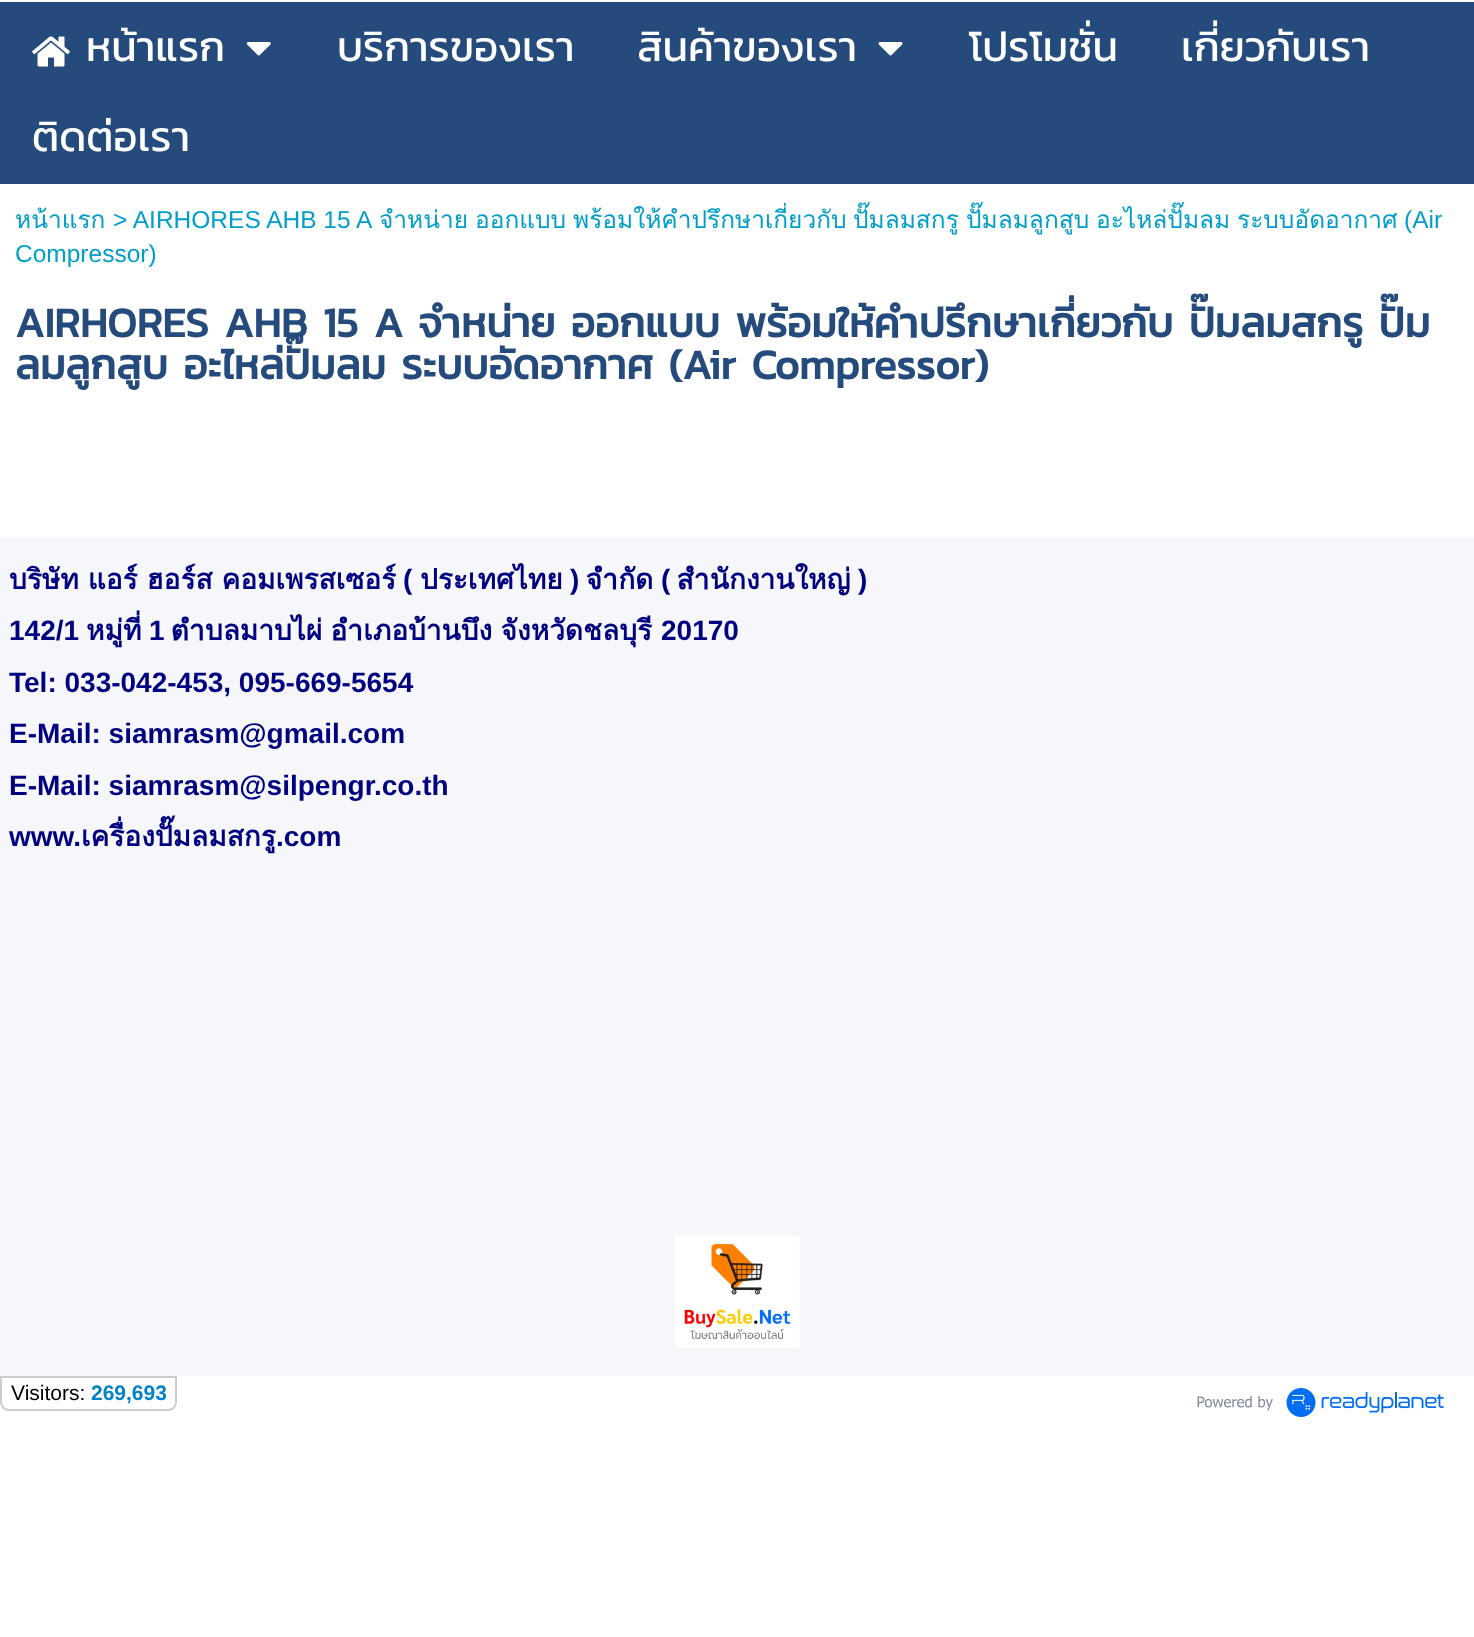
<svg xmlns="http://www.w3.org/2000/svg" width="1474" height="1637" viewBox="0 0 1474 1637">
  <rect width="100%" height="100%" fill="#ffffff"/>
  <rect x="0" y="2" width="1474" height="182" fill="#254b7c"/>
  <image x="32" y="36" width="38" height="31" href="img1.png"/>
  <text x="86" y="61" font-family="Kanit" font-size="42" fill="#ffffff">หน้าแรก</text>
  <image x="246" y="42" width="25" height="14" href="img2.png"/>
  <text x="337" y="61" font-family="Kanit" font-size="42" fill="#ffffff">บริการของเรา</text>
  <text x="637" y="61" font-family="Kanit" font-size="42" fill="#ffffff">สินค้าของเรา</text>
  <image x="878" y="42" width="25" height="14" href="img3.png"/>
  <text x="969" y="61" font-family="Kanit" font-size="42" fill="#ffffff">โปรโมชั่น</text>
  <text x="1181" y="61" font-family="Kanit" font-size="42" fill="#ffffff">เกี่ยวกับเรา</text>
  <text x="32" y="151" font-family="Kanit" font-size="42" fill="#ffffff">ติดต่อเรา</text>
  <text x="15" y="228" font-family="Loma" font-size="24.5" fill="#009eca">หน้าแรก</text>
  <text x="113" y="228" font-family="Liberation Sans" font-size="24.5" fill="#009eca">&gt; AIRHORES AHB 15 A</text>
  <text x="379" y="228" font-family="Loma" font-size="24.5" fill="#009eca">จำหน่าย</text>
  <text x="475" y="228" font-family="Loma" font-size="24.5" fill="#009eca">ออกแบบ</text>
  <text x="573" y="228" font-family="Loma" font-size="24.5" fill="#009eca">พร้อมให้คำปรึกษาเกี่ยวกับ</text>
  <text x="853" y="228" font-family="Loma" font-size="24.5" fill="#009eca">ปั๊มลมสกรู</text>
  <text x="966" y="228" font-family="Loma" font-size="24.5" fill="#009eca">ปั๊มลมลูกสูบ</text>
  <text x="1096" y="228" font-family="Loma" font-size="24.5" fill="#009eca">อะไหล่ปั๊มลม</text>
  <text x="1237" y="228" font-family="Loma" font-size="24.5" fill="#009eca">ระบบอัดอากาศ</text>
  <text x="1404" y="228" font-family="Liberation Sans" font-size="24.5" fill="#009eca">(Air</text>
  <text x="15" y="262" font-family="Liberation Sans" font-size="24.5" fill="#009eca">Compressor)</text>
  <text x="15" y="337" font-family="Kanit" font-size="42" font-weight="bold" fill="#254b7c">AIRHORES AHB 15 A จำหน่าย ออกแบบ พร้อมให้คำปรึกษาเกี่ยวกับ ปั๊มลมสกรู ปั๊ม</text>
  <text x="15" y="379" font-family="Kanit" font-size="42" font-weight="bold" fill="#254b7c">ลมลูกสูบ อะไหล่ปั๊มลม ระบบอัดอากาศ (Air Compressor)</text>
  <rect x="0" y="537" width="1474" height="839" fill="#f5f7fa"/>
  <text x="9" y="589" word-spacing="-0.5" font-family="Loma" font-size="28" font-weight="bold" fill="#000080">บริษัท แอร์ ฮอร์ส คอมเพรสเซอร์</text>
  <text x="403" y="589" font-family="Liberation Sans" font-size="28" font-weight="bold" fill="#000080">(</text>
  <text x="420" y="589" font-family="Loma" font-size="28" font-weight="bold" fill="#000080">ประเทศไทย</text>
  <text x="570" y="589" font-family="Liberation Sans" font-size="28" font-weight="bold" fill="#000080">)</text>
  <text x="586" y="589" font-family="Loma" font-size="28" font-weight="bold" fill="#000080">จำกัด</text>
  <text x="661" y="589" font-family="Liberation Sans" font-size="28" font-weight="bold" fill="#000080">(</text>
  <text x="677" y="589" font-family="Loma" font-size="28" font-weight="bold" fill="#000080">สำนักงานใหญ่</text>
  <text x="858" y="589" font-family="Liberation Sans" font-size="28" font-weight="bold" fill="#000080">)</text>
  <text x="9" y="640" font-family="Liberation Sans" font-size="28" font-weight="bold" fill="#000080">142/1</text>
  <text x="86" y="640" font-family="Loma" font-size="28" font-weight="bold" fill="#000080">หมู่ที่</text>
  <text x="149" y="640" font-family="Liberation Sans" font-size="28" font-weight="bold" fill="#000080">1</text>
  <text x="171" y="640" word-spacing="-1" font-family="Loma" font-size="28" font-weight="bold" fill="#000080">ตำบลมาบไผ่ อำเภอบ้านบึง จังหวัดชลบุรี</text>
  <text x="661" y="640" font-family="Liberation Sans" font-size="28" font-weight="bold" fill="#000080">20170</text>
  <text x="9" y="692" font-family="Liberation Sans" font-size="28" font-weight="bold" fill="#000080">Tel: 033-042-453, 095-669-5654</text>
  <text x="9" y="743" font-family="Liberation Sans" font-size="28" font-weight="bold" fill="#000080">E-Mail: siamrasm@gmail.com</text>
  <text x="9" y="795" font-family="Liberation Sans" font-size="28" font-weight="bold" fill="#000080">E-Mail: siamrasm@silpengr.co.th</text>
  <text x="9" y="846" font-family="Liberation Sans" font-size="28" font-weight="bold" fill="#000080">www.</text>
  <text x="81" y="846" font-family="Loma" font-size="28" font-weight="bold" fill="#000080">เครื่องปั๊มลมสกรู</text>
  <text x="276" y="846" font-family="Liberation Sans" font-size="28" font-weight="bold" fill="#000080">.com</text>
  <image x="675" y="1235" width="125" height="113" href="img4.png"/>
  <path d="M1 1377H176V1402C176 1406.5 172.5 1410 168 1410H9C4.5 1410 1 1406.5 1 1402Z" fill="none" stroke="#cccccc" stroke-width="2"/>
  <text x="11" y="1400" font-family="Liberation Sans" font-size="21" fill="#000000">Visitors:</text>
  <text x="91" y="1400" font-family="Liberation Sans" font-size="21" font-weight="bold" fill="#0081c8">269,693</text>
  <image x="1197" y="1388" width="247" height="29" href="img5.png"/>
</svg>
